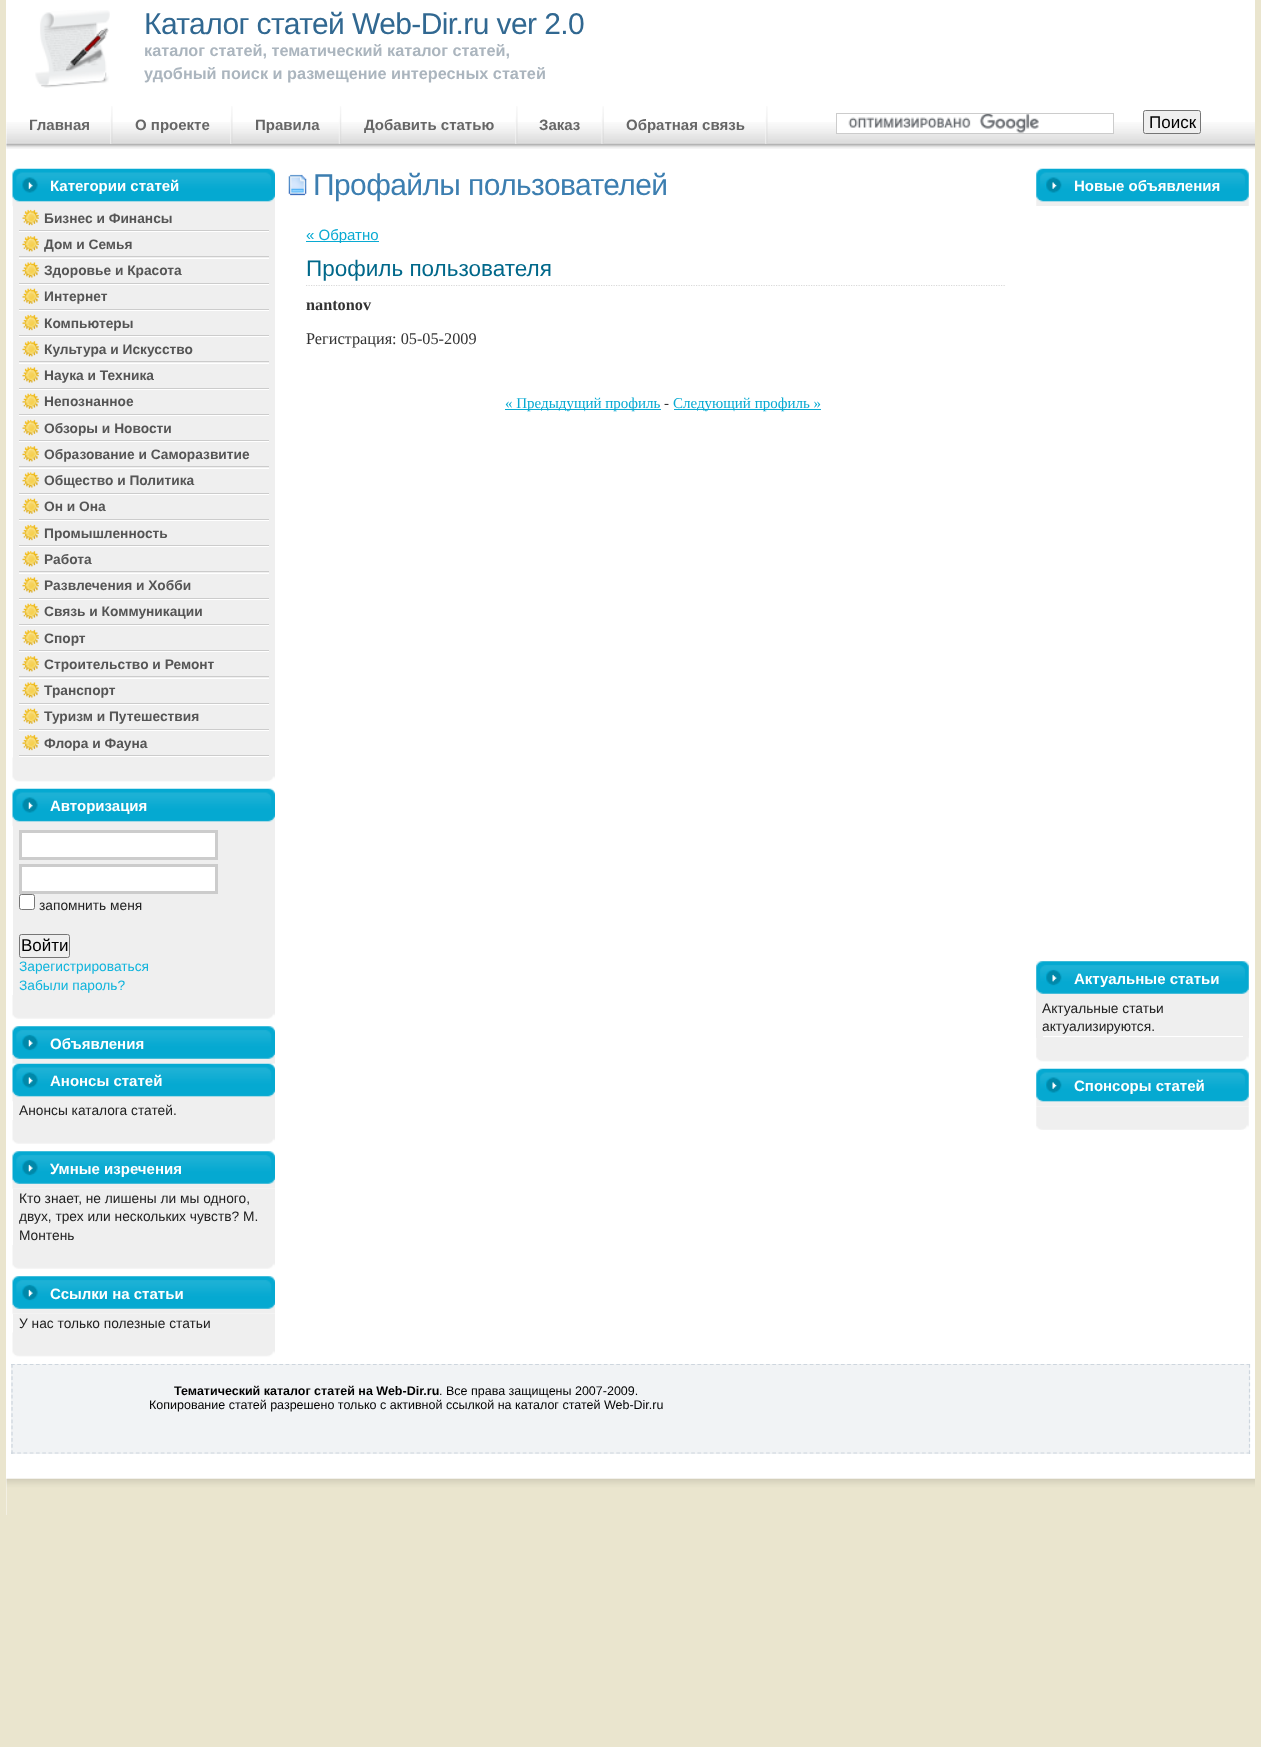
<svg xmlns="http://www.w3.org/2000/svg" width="1261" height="1747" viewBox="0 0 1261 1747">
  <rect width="100%" height="100%" fill="#eae5ce"/>
  <rect x="6" y="0" width="1249" height="1515" fill="#ffffff"/>
  <image x="35" y="10" width="75" height="78" href="img1.png"/>
  <text x="144" y="34" font-family="Liberation Sans" font-size="30" letter-spacing="-0.6" fill="#316891">Каталог статей Web-Dir.ru ver 2.0</text>
  <text x="144" y="56" font-family="Liberation Sans" font-size="16.25" font-weight="bold" fill="#abb5be">каталог статей, тематический каталог статей,</text>
  <text x="144" y="79" font-family="Liberation Sans" font-size="16.25" font-weight="bold" fill="#abb5be">удобный поиск и размещение интересных статей</text>
  <image x="6" y="122" width="1249" height="27" href="img2.png"/>
  <image x="110" y="106" width="3" height="38" href="img3.png"/>
  <text x="29" y="130" font-family="Liberation Sans" font-size="15" font-weight="bold" fill="#666666">Главная</text>
  <image x="230" y="106" width="3" height="38" href="img3.png"/>
  <text x="135" y="130" font-family="Liberation Sans" font-size="15" font-weight="bold" fill="#666666">О проекте</text>
  <image x="338" y="106" width="4" height="38" href="img4.png"/>
  <text x="255" y="130" font-family="Liberation Sans" font-size="15" font-weight="bold" fill="#666666">Правила</text>
  <image x="515" y="106" width="3" height="38" href="img3.png"/>
  <text x="364" y="130" font-family="Liberation Sans" font-size="15" font-weight="bold" fill="#666666">Добавить статью</text>
  <image x="601" y="106" width="3" height="38" href="img5.png"/>
  <text x="539" y="130" font-family="Liberation Sans" font-size="15" font-weight="bold" fill="#666666">Заказ</text>
  <image x="765" y="106" width="3" height="38" href="img3.png"/>
  <text x="626" y="130" font-family="Liberation Sans" font-size="15" font-weight="bold" fill="#666666">Обратная связь</text>
  <rect x="837" y="122" width="276" height="11" fill="#ffffff"/>
  <image x="848" y="114" width="191" height="19" href="img6.png"/>
  <rect x="836.5" y="113.5" width="277" height="20" fill="none" stroke="#cccccc"/>
  <rect x="1143.5" y="110.5" width="57" height="23" rx="2" fill="#efefef" stroke="#767676"/>
  <text x="1149" y="128" font-family="Liberation Sans" font-size="17" fill="#000000">Поиск</text>
  <image x="12" y="168" width="263" height="39" href="img7.png"/>
  <text x="50" y="191" font-family="Liberation Sans" font-size="15" font-weight="bold" fill="#ffffff">Категории статей</text>
  <image x="12" y="757" width="263" height="25" href="img14.png"/>
  <rect x="13" y="206" width="262" height="552" fill="#efefef"/>
  <rect x="19" y="231" width="250" height="1" fill="#ffffff"/>
  <image x="22" y="209" width="17" height="17" href="img8.png"/>
  <rect x="19" y="230" width="250" height="1" fill="#cccccc"/>
  <text x="44" y="223" font-family="Liberation Sans" font-size="13.75" font-weight="bold" fill="#555555">Бизнес и Финансы</text>
  <rect x="19" y="258" width="250" height="1" fill="#ffffff"/>
  <image x="22" y="236" width="17" height="16" href="img9.png"/>
  <rect x="19" y="256" width="250" height="1" fill="#cccccc"/>
  <text x="44" y="249" font-family="Liberation Sans" font-size="13.75" font-weight="bold" fill="#555555">Дом и Семья</text>
  <rect x="19" y="284" width="250" height="1" fill="#ffffff"/>
  <image x="22" y="262" width="17" height="16" href="img10.png"/>
  <rect x="19" y="283" width="250" height="1" fill="#cccccc"/>
  <text x="44" y="275" font-family="Liberation Sans" font-size="13.75" font-weight="bold" fill="#555555">Здоровье и Красота</text>
  <rect x="19" y="310" width="250" height="1" fill="#ffffff"/>
  <image x="22" y="288" width="17" height="16" href="img11.png"/>
  <rect x="19" y="309" width="250" height="1" fill="#cccccc"/>
  <text x="44" y="301" font-family="Liberation Sans" font-size="13.75" font-weight="bold" fill="#555555">Интернет</text>
  <rect x="19" y="336" width="250" height="1" fill="#ffffff"/>
  <image x="22" y="314" width="17" height="17" href="img8.png"/>
  <rect x="19" y="335" width="250" height="1" fill="#cccccc"/>
  <text x="44" y="328" font-family="Liberation Sans" font-size="13.75" font-weight="bold" fill="#555555">Компьютеры</text>
  <rect x="19" y="363" width="250" height="1" fill="#ffffff"/>
  <image x="22" y="341" width="17" height="16" href="img9.png"/>
  <rect x="19" y="361" width="250" height="1" fill="#cccccc"/>
  <text x="44" y="354" font-family="Liberation Sans" font-size="13.75" font-weight="bold" fill="#555555">Культура и Искусство</text>
  <rect x="19" y="389" width="250" height="1" fill="#ffffff"/>
  <image x="22" y="367" width="17" height="16" href="img10.png"/>
  <rect x="19" y="388" width="250" height="1" fill="#cccccc"/>
  <text x="44" y="380" font-family="Liberation Sans" font-size="13.75" font-weight="bold" fill="#555555">Наука и Техника</text>
  <rect x="19" y="415" width="250" height="1" fill="#ffffff"/>
  <image x="22" y="393" width="17" height="16" href="img12.png"/>
  <rect x="19" y="414" width="250" height="1" fill="#cccccc"/>
  <text x="44" y="406" font-family="Liberation Sans" font-size="13.75" font-weight="bold" fill="#555555">Непознанное</text>
  <rect x="19" y="441" width="250" height="1" fill="#ffffff"/>
  <image x="22" y="419" width="17" height="17" href="img8.png"/>
  <rect x="19" y="440" width="250" height="1" fill="#cccccc"/>
  <text x="44" y="433" font-family="Liberation Sans" font-size="13.75" font-weight="bold" fill="#555555">Обзоры и Новости</text>
  <rect x="19" y="468" width="250" height="1" fill="#ffffff"/>
  <image x="22" y="446" width="17" height="16" href="img9.png"/>
  <rect x="19" y="466" width="250" height="1" fill="#cccccc"/>
  <text x="44" y="459" font-family="Liberation Sans" font-size="13.75" font-weight="bold" fill="#555555">Образование и Саморазвитие</text>
  <rect x="19" y="494" width="250" height="1" fill="#ffffff"/>
  <image x="22" y="472" width="17" height="16" href="img10.png"/>
  <rect x="19" y="493" width="250" height="1" fill="#cccccc"/>
  <text x="44" y="485" font-family="Liberation Sans" font-size="13.75" font-weight="bold" fill="#555555">Общество и Политика</text>
  <rect x="19" y="520" width="250" height="1" fill="#ffffff"/>
  <image x="22" y="498" width="17" height="16" href="img12.png"/>
  <rect x="19" y="519" width="250" height="1" fill="#cccccc"/>
  <text x="44" y="511" font-family="Liberation Sans" font-size="13.75" font-weight="bold" fill="#555555">Он и Она</text>
  <rect x="19" y="546" width="250" height="1" fill="#ffffff"/>
  <image x="22" y="524" width="17" height="17" href="img8.png"/>
  <rect x="19" y="545" width="250" height="1" fill="#cccccc"/>
  <text x="44" y="538" font-family="Liberation Sans" font-size="13.75" font-weight="bold" fill="#555555">Промышленность</text>
  <rect x="19" y="573" width="250" height="1" fill="#ffffff"/>
  <image x="22" y="551" width="17" height="16" href="img9.png"/>
  <rect x="19" y="571" width="250" height="1" fill="#cccccc"/>
  <text x="44" y="564" font-family="Liberation Sans" font-size="13.75" font-weight="bold" fill="#555555">Работа</text>
  <rect x="19" y="599" width="250" height="1" fill="#ffffff"/>
  <image x="22" y="577" width="17" height="16" href="img13.png"/>
  <rect x="19" y="598" width="250" height="1" fill="#cccccc"/>
  <text x="44" y="590" font-family="Liberation Sans" font-size="13.75" font-weight="bold" fill="#555555">Развлечения и Хобби</text>
  <rect x="19" y="625" width="250" height="1" fill="#ffffff"/>
  <image x="22" y="603" width="17" height="16" href="img12.png"/>
  <rect x="19" y="624" width="250" height="1" fill="#cccccc"/>
  <text x="44" y="616" font-family="Liberation Sans" font-size="13.75" font-weight="bold" fill="#555555">Связь и Коммуникации</text>
  <rect x="19" y="651" width="250" height="1" fill="#ffffff"/>
  <image x="22" y="629" width="17" height="17" href="img8.png"/>
  <rect x="19" y="650" width="250" height="1" fill="#cccccc"/>
  <text x="44" y="643" font-family="Liberation Sans" font-size="13.75" font-weight="bold" fill="#555555">Спорт</text>
  <rect x="19" y="678" width="250" height="1" fill="#ffffff"/>
  <image x="22" y="656" width="17" height="16" href="img9.png"/>
  <rect x="19" y="676" width="250" height="1" fill="#cccccc"/>
  <text x="44" y="669" font-family="Liberation Sans" font-size="13.75" font-weight="bold" fill="#555555">Строительство и Ремонт</text>
  <rect x="19" y="704" width="250" height="1" fill="#ffffff"/>
  <image x="22" y="682" width="17" height="16" href="img10.png"/>
  <rect x="19" y="703" width="250" height="1" fill="#cccccc"/>
  <text x="44" y="695" font-family="Liberation Sans" font-size="13.75" font-weight="bold" fill="#555555">Транспорт</text>
  <rect x="19" y="730" width="250" height="1" fill="#ffffff"/>
  <image x="22" y="708" width="17" height="16" href="img12.png"/>
  <rect x="19" y="729" width="250" height="1" fill="#cccccc"/>
  <text x="44" y="721" font-family="Liberation Sans" font-size="13.75" font-weight="bold" fill="#555555">Туризм и Путешествия</text>
  <rect x="19" y="756" width="250" height="1" fill="#ffffff"/>
  <image x="22" y="734" width="17" height="17" href="img8.png"/>
  <rect x="19" y="755" width="250" height="1" fill="#cccccc"/>
  <text x="44" y="748" font-family="Liberation Sans" font-size="13.75" font-weight="bold" fill="#555555">Флора и Фауна</text>
  <image x="12" y="788" width="263" height="39" href="img7.png"/>
  <text x="50" y="811" font-family="Liberation Sans" font-size="15" font-weight="bold" fill="#ffffff">Авторизация</text>
  <rect x="13" y="826" width="262" height="169" fill="#efefef"/>
  <rect x="20.5" y="831.5" width="196" height="27" fill="#ffffff" stroke="#cccccc" stroke-width="3"/>
  <rect x="20.5" y="865.5" width="196" height="27" fill="#ffffff" stroke="#cccccc" stroke-width="3"/>
  <rect x="19.5" y="894.5" width="15" height="15" rx="2" fill="#ffffff" stroke="#767676"/>
  <text x="39" y="910" font-family="Liberation Sans" font-size="13.75" fill="#222222">запомнить меня</text>
  <rect x="19.5" y="934.5" width="50" height="23" rx="2" fill="none" stroke="#767676"/>
  <text x="21" y="951" font-family="Liberation Sans" font-size="17" fill="#000000">Войти</text>
  <text x="19" y="971" font-family="Liberation Sans" font-size="13.75" fill="#11b4dc">Зарегистрироваться</text>
  <text x="19" y="990" font-family="Liberation Sans" font-size="13.75" fill="#11b4dc">Забыли пароль?</text>
  <image x="12" y="995" width="263" height="24" href="img15.png"/>
  <image x="12" y="1026" width="263" height="38" href="img16.png"/>
  <text x="50" y="1049" font-family="Liberation Sans" font-size="15" font-weight="bold" fill="#ffffff">Объявления</text>
  <image x="12" y="1063" width="263" height="39" href="img17.png"/>
  <text x="50" y="1086" font-family="Liberation Sans" font-size="15" font-weight="bold" fill="#ffffff">Анонсы статей</text>
  <rect x="13" y="1101" width="262" height="19" fill="#efefef"/>
  <text x="19" y="1115" font-family="Liberation Sans" font-size="13.75" fill="#222222">Анонсы каталога статей.</text>
  <image x="12" y="1120" width="263" height="24" href="img15.png"/>
  <image x="12" y="1151" width="263" height="38" href="img18.png"/>
  <text x="50" y="1174" font-family="Liberation Sans" font-size="15" font-weight="bold" fill="#ffffff">Умные изречения</text>
  <rect x="13" y="1189" width="262" height="56" fill="#efefef"/>
  <text x="19" y="1203" font-family="Liberation Sans" font-size="13.75" fill="#222222">Кто знает, не лишены ли мы одного,</text>
  <text x="19" y="1221" font-family="Liberation Sans" font-size="13.75" fill="#222222">двух, трех или нескольких чувств? М.</text>
  <text x="19" y="1240" font-family="Liberation Sans" font-size="13.75" fill="#222222">Монтень</text>
  <image x="12" y="1245" width="263" height="24" href="img15.png"/>
  <image x="12" y="1276" width="263" height="38" href="img16.png"/>
  <text x="50" y="1299" font-family="Liberation Sans" font-size="15" font-weight="bold" fill="#ffffff">Ссылки на статьи</text>
  <image x="12" y="1332" width="263" height="25" href="img14.png"/>
  <rect x="13" y="1314" width="262" height="19" fill="#efefef"/>
  <text x="19" y="1328" font-family="Liberation Sans" font-size="13.75" fill="#222222">У нас только полезные статьи</text>
  <image x="288" y="174" width="19" height="22" href="img19.png"/>
  <text x="313" y="195" font-family="Liberation Sans" font-size="30" letter-spacing="-0.6" fill="#3c7eb0">Профайлы пользователей</text>
  <rect x="306" y="241" width="73" height="1" fill="#09aad2"/>
  <text x="306" y="240" font-family="Liberation Sans" font-size="15" fill="#09aad2">« Обратно</text>
  <path d="M306 285.5H1006" fill="none" stroke="#d9d9d9" stroke-width="1.2" stroke-dasharray="1.25 1.25"/>
  <text x="306" y="276" font-family="Liberation Sans" font-size="22.5" fill="#00688a">Профиль пользователя</text>
  <text x="306" y="310" font-family="Liberation Serif" font-size="16.25" font-weight="bold" fill="#333333">nantonov</text>
  <text x="306" y="344" font-family="Liberation Serif" font-size="16.25" fill="#333333">Регистрация: 05-05-2009</text>
  <rect x="505" y="409" width="156" height="1" fill="#09aad2"/>
  <text x="505" y="408" font-family="Liberation Serif" font-size="15" fill="#09aad2">« Предыдущий профиль</text>
  <text x="664" y="408" font-family="Liberation Serif" font-size="15" fill="#333333">-</text>
  <rect x="674" y="409" width="147" height="1" fill="#09aad2"/>
  <text x="673" y="408" font-family="Liberation Serif" font-size="15" fill="#09aad2">Следующий профиль »</text>
  <image x="1036" y="168" width="213" height="38" href="img20.png"/>
  <text x="1074" y="191" font-family="Liberation Sans" font-size="15" font-weight="bold" fill="#ffffff">Новые объявления</text>
  <rect x="1036" y="961" width="213" height="77" fill="#efefef"/>
  <image x="1036" y="961" width="213" height="33" href="img21.png"/>
  <text x="1074" y="984" font-family="Liberation Sans" font-size="15" font-weight="bold" fill="#ffffff">Актуальные статьи</text>
  <rect x="1043" y="1036" width="200" height="1" fill="#ffffff"/>
  <text x="1042" y="1013" font-family="Liberation Sans" font-size="13.75" fill="#222222">Актуальные статьи</text>
  <text x="1042" y="1031" font-family="Liberation Sans" font-size="13.75" fill="#222222">актуализируются.</text>
  <image x="1036" y="1038" width="213" height="24" href="img22.png"/>
  <image x="1036" y="1068" width="213" height="38" href="img20.png"/>
  <text x="1074" y="1091" font-family="Liberation Sans" font-size="15" font-weight="bold" fill="#ffffff">Спонсоры статей</text>
  <image x="1036" y="1106" width="213" height="24" href="img23.png"/>
  <rect x="11" y="1364" width="1239" height="90" fill="#f1f3f5"/>
  <path d="M11 1364.5H1250" fill="none" stroke="#ced6de" stroke-width="1.2" stroke-dasharray="3.75 2.49"/>
  <path d="M1249.5 1364V1454" fill="none" stroke="#ced6de" stroke-width="1.2" stroke-dasharray="3.75 2.41"/>
  <path d="M11 1453H1250" fill="none" stroke="#ced6de" stroke-width="1.2" stroke-dasharray="3.75 2.49"/>
  <path d="M12 1364V1454" fill="none" stroke="#ced6de" stroke-width="1.2" stroke-dasharray="3.75 2.41"/>
  <text x="174" y="1395" font-family="Liberation Sans" font-size="12.5" font-weight="bold" fill="#000000">Тематический каталог статей на Web-Dir.ru</text>
  <text x="439" y="1395" font-family="Liberation Sans" font-size="12.5" fill="#000000">. Все права защищены 2007-2009.</text>
  <text x="149" y="1409" font-family="Liberation Sans" font-size="12.5" fill="#000000">Копирование статей разрешено только с активной ссылкой на каталог статей Web-Dir.ru</text>
  <image x="6" y="1478" width="1249" height="37" href="img24.png"/>
</svg>
